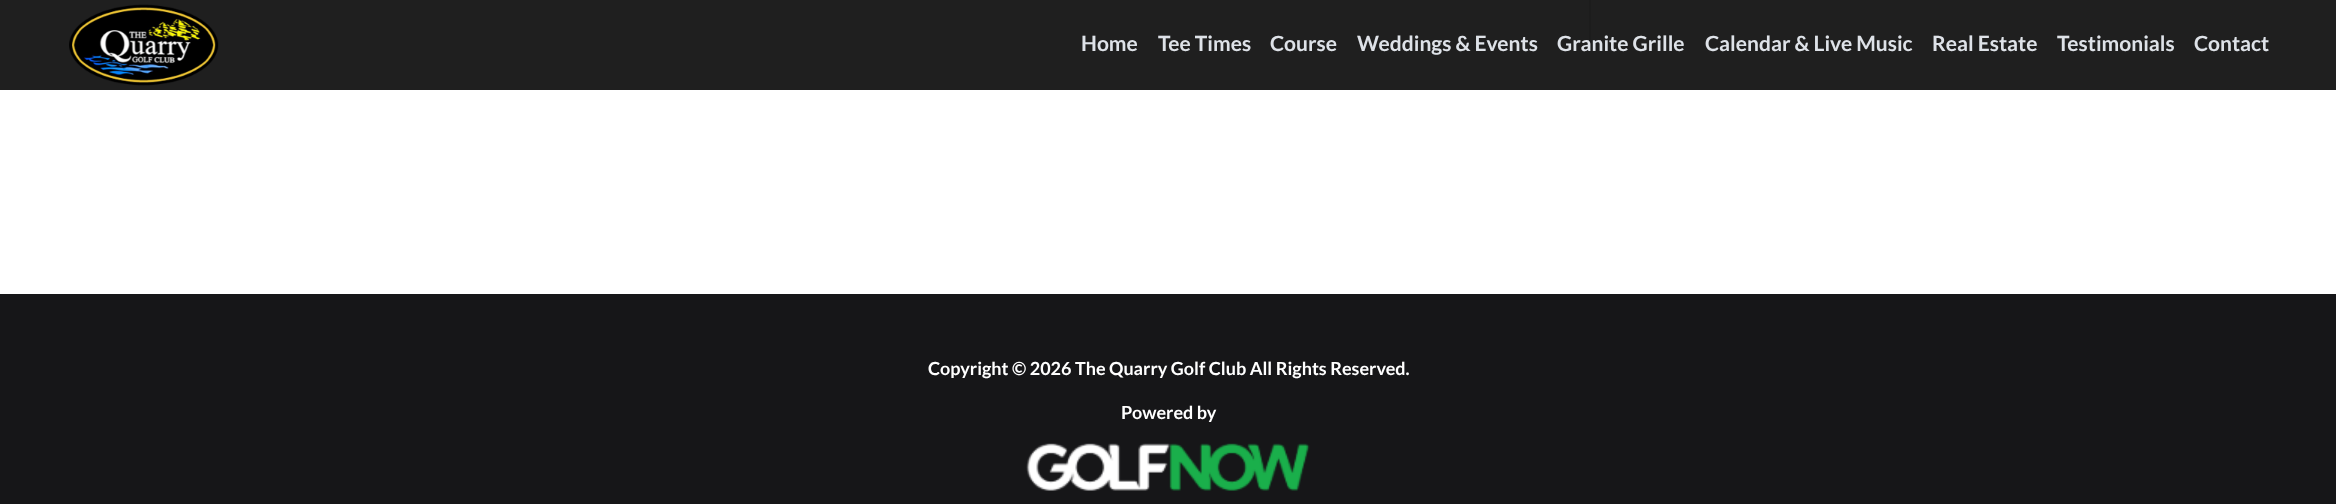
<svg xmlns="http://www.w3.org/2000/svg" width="2336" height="504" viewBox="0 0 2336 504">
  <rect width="100%" height="100%" fill="#ffffff"/>
  <rect x="1589" y="0" width="2" height="44" fill="#e5e5e5"/>
  <rect x="0" y="0" width="2336" height="90" fill="#000000" fill-opacity="0.66"/>
  <rect x="0" y="0" width="2336" height="90" fill="#000000" fill-opacity="0.64"/>
  <image x="69" y="4" width="150" height="82" href="img1.png"/>
  <text x="1081" y="51" font-family="Lato" font-size="21" font-weight="bold" fill="#dee2e8">Home</text>
  <text x="1158" y="51" font-family="Lato" font-size="21" font-weight="bold" fill="#dee2e8">Tee Times</text>
  <text x="1270" y="51" font-family="Lato" font-size="21" font-weight="bold" fill="#dee2e8">Course</text>
  <text x="1357" y="51" font-family="Lato" font-size="21" font-weight="bold" fill="#dee2e8">Weddings &amp; Events</text>
  <text x="1557" y="51" font-family="Lato" font-size="21" font-weight="bold" fill="#dee2e8">Granite Grille</text>
  <text x="1705" y="51" font-family="Lato" font-size="21" font-weight="bold" fill="#dee2e8">Calendar &amp; Live Music</text>
  <text x="1932" y="51" font-family="Lato" font-size="21" font-weight="bold" fill="#dee2e8">Real Estate</text>
  <text x="2057" y="51" font-family="Lato" font-size="21" font-weight="bold" fill="#dee2e8">Testimonials</text>
  <text x="2194" y="51" font-family="Lato" font-size="21" font-weight="bold" fill="#dee2e8">Contact</text>
  <rect x="0" y="294" width="2336" height="210" fill="#161618"/>
  <text x="928" y="375" font-family="Lato" font-size="18" font-weight="bold" fill="#ffffff">Copyright © 2026 The Quarry Golf Club All Rights Reserved.</text>
  <text x="1121" y="419" font-family="Lato" font-size="18" font-weight="bold" fill="#ffffff">Powered by</text>
  <image x="1026" y="443" width="284" height="48" href="img2.png"/>
</svg>
